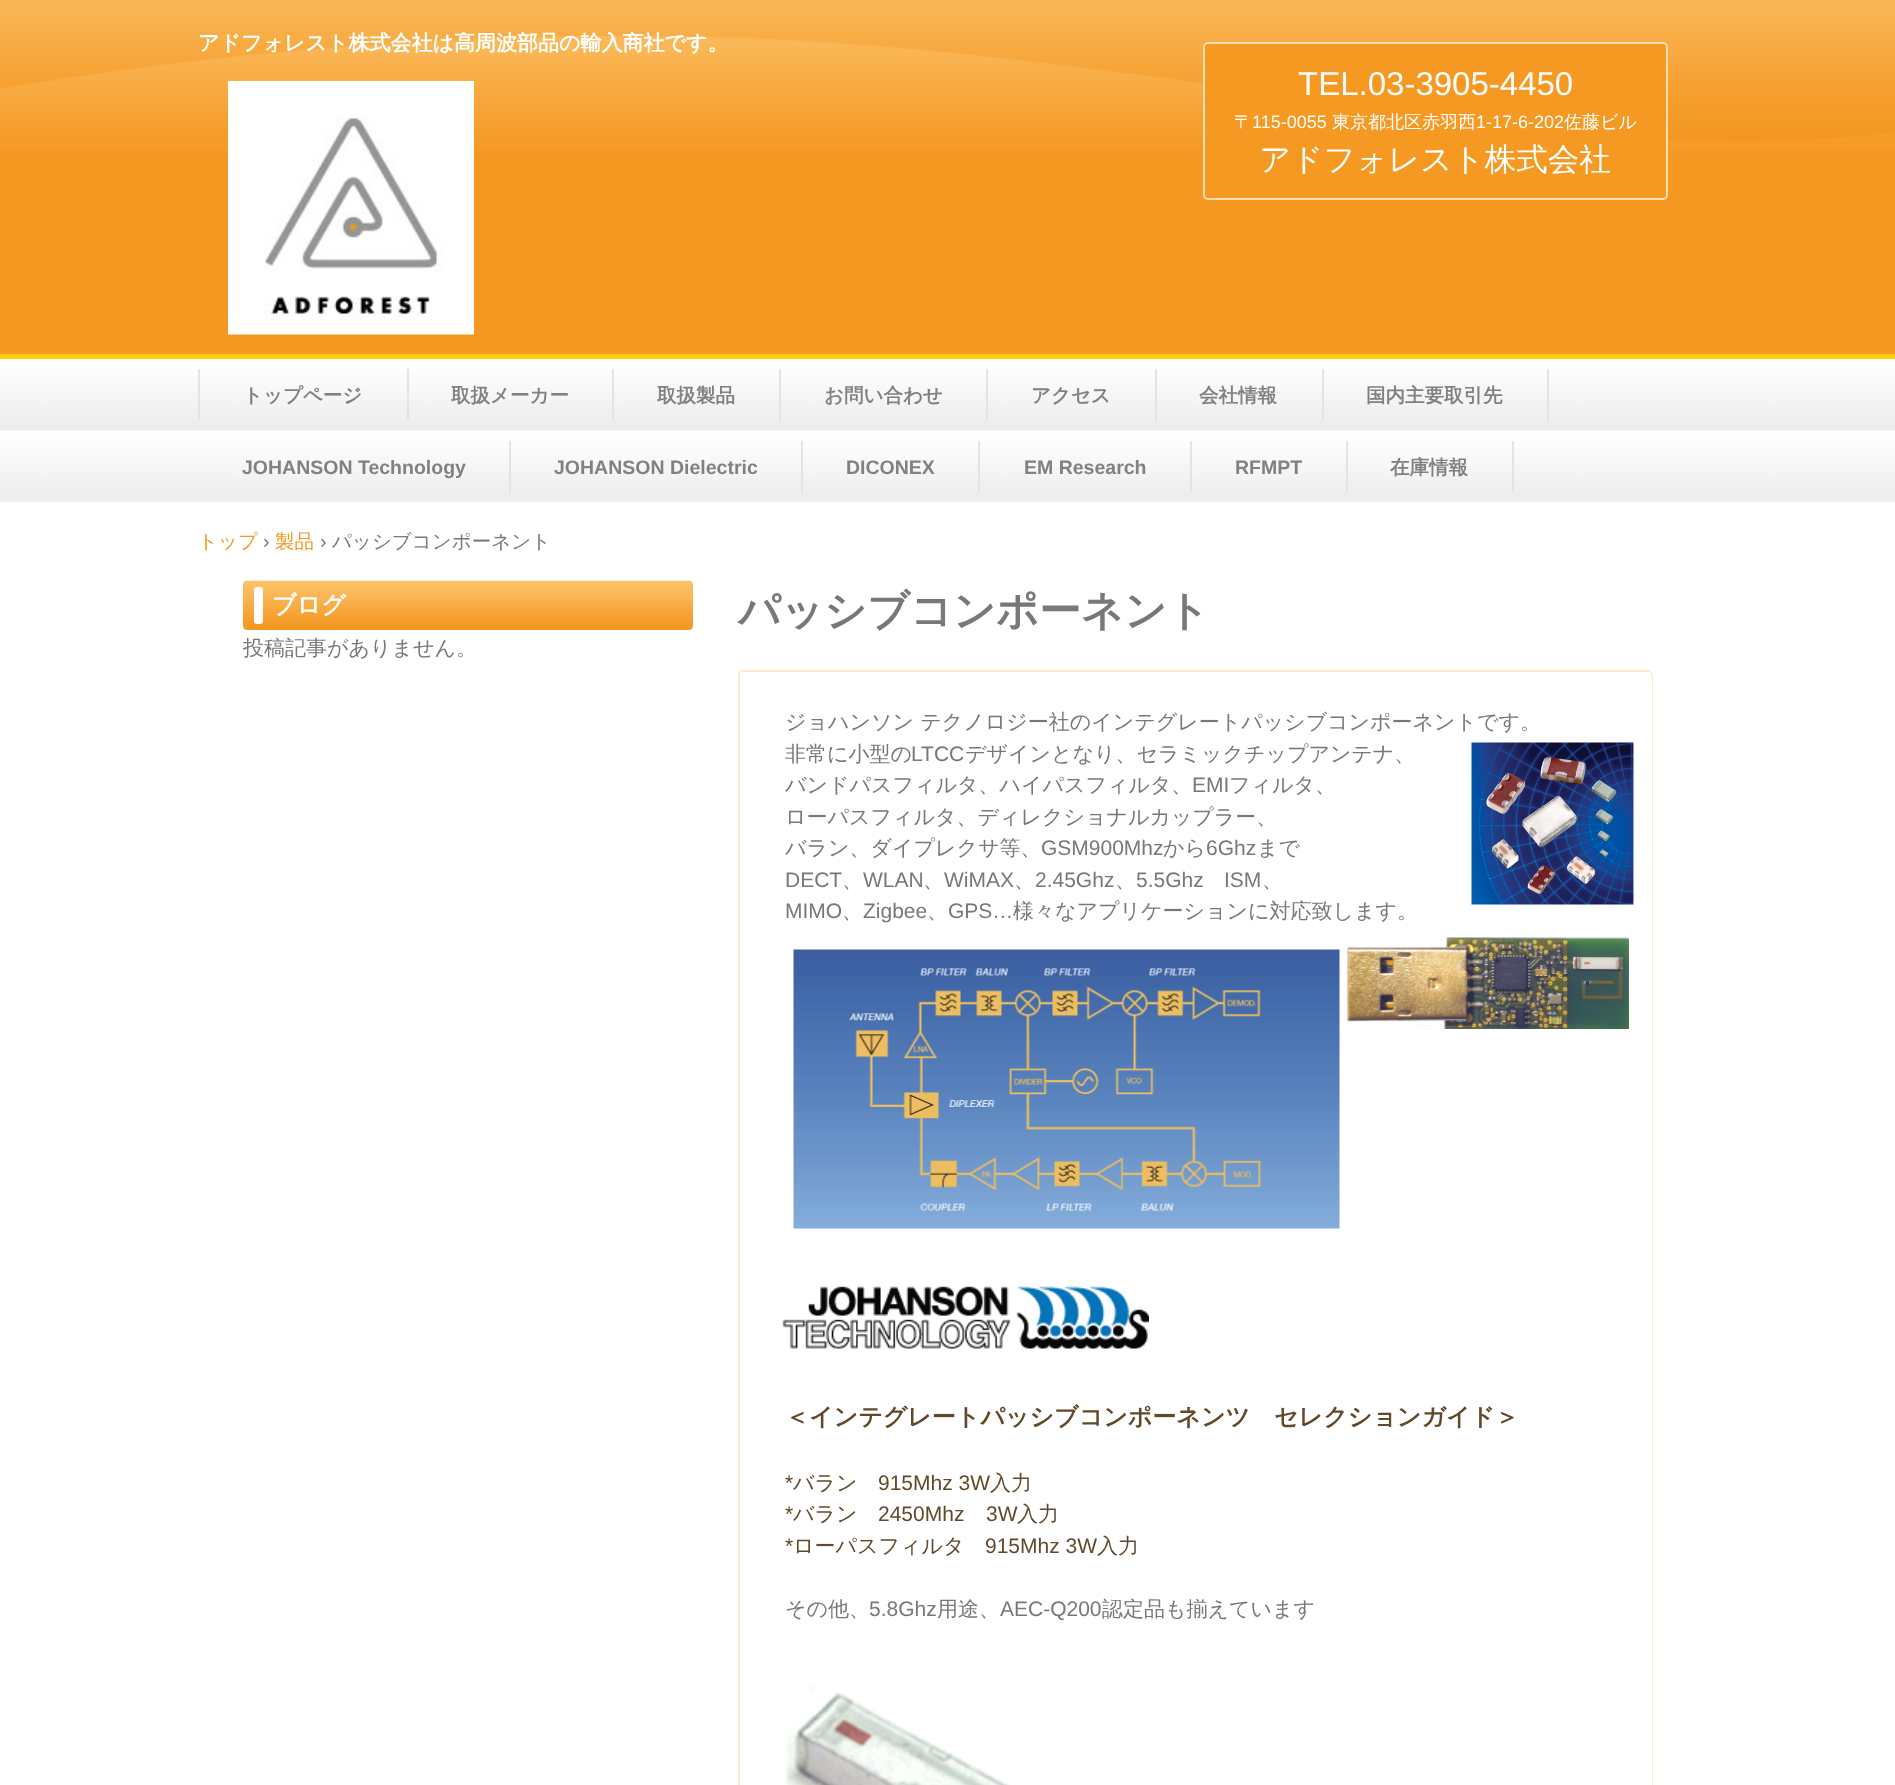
<svg xmlns="http://www.w3.org/2000/svg" width="1895" height="1785" viewBox="0 0 1895 1785">
  <rect width="100%" height="100%" fill="#ffffff"/>
  <rect x="0" y="151" width="1895" height="203" fill="#f49821"/>
  <image x="0" y="0" width="1895" height="151" href="img1.png"/>
  <text x="198" y="50" font-family="WenQuanYi Zen Hei" font-size="21" font-weight="bold" fill="#ffffff">アドフォレスト株式会社は高周波部品の輸入商社です。</text>
  <image x="228" y="81" width="246" height="254" href="img2.png"/>
  <rect x="1204" y="43" width="463" height="156" rx="4" fill="#f59922" stroke="#ffe0b2" stroke-width="2"/>
  <text x="1298" y="95" font-family="Liberation Sans" font-size="33" fill="#ffffff">TEL.03-3905-4450</text>
  <text x="1234" y="128" font-family="WenQuanYi Zen Hei" font-size="18" font-weight="500" fill="#ffffff">〒</text>
  <text x="1252" y="128" font-family="Liberation Sans" font-size="18" fill="#ffffff">115-0055</text>
  <text x="1332" y="128" font-family="WenQuanYi Zen Hei" font-size="18" font-weight="500" fill="#ffffff">東京都北区赤羽西</text>
  <text x="1476" y="128" font-family="Liberation Sans" font-size="18" fill="#ffffff">1-17-6-202</text>
  <text x="1564" y="128" font-family="WenQuanYi Zen Hei" font-size="18" font-weight="500" fill="#ffffff">佐藤ビル</text>
  <text x="1259" y="170" font-family="WenQuanYi Zen Hei" font-size="31.5" font-weight="500" fill="#ffffff">アドフォレスト株式会社</text>
  <image x="0" y="359" width="1895" height="144" href="img3.png"/>
  <rect x="0" y="354" width="1895" height="5" fill="#fece0c"/>
  <rect x="407" y="369" width="2" height="51" fill="#e4e4e4"/>
  <rect x="198" y="369" width="2" height="51" fill="#e4e4e4"/>
  <text x="243" y="402" font-family="WenQuanYi Zen Hei" font-size="19.5" font-weight="bold" fill="#818181">トップページ</text>
  <rect x="612" y="369" width="2" height="51" fill="#e4e4e4"/>
  <text x="451" y="402" font-family="WenQuanYi Zen Hei" font-size="19.5" font-weight="bold" fill="#818181">取扱メーカー</text>
  <rect x="779" y="369" width="2" height="51" fill="#e4e4e4"/>
  <text x="657" y="402" font-family="WenQuanYi Zen Hei" font-size="19.5" font-weight="bold" fill="#818181">取扱製品</text>
  <rect x="986" y="369" width="2" height="51" fill="#e4e4e4"/>
  <text x="824" y="402" font-family="WenQuanYi Zen Hei" font-size="19.5" font-weight="bold" fill="#818181">お問い合わせ</text>
  <rect x="1155" y="369" width="2" height="51" fill="#e4e4e4"/>
  <text x="1031" y="402" font-family="WenQuanYi Zen Hei" font-size="19.5" font-weight="bold" fill="#818181">アクセス</text>
  <rect x="1322" y="369" width="2" height="51" fill="#e4e4e4"/>
  <text x="1199" y="402" font-family="WenQuanYi Zen Hei" font-size="19.5" font-weight="bold" fill="#818181">会社情報</text>
  <rect x="1547" y="369" width="2" height="51" fill="#e4e4e4"/>
  <text x="1366" y="402" font-family="WenQuanYi Zen Hei" font-size="19.5" font-weight="bold" fill="#818181">国内主要取引先</text>
  <rect x="509" y="441" width="2" height="51" fill="#e4e4e4"/>
  <text x="242" y="474" font-family="Liberation Sans" font-size="19.5" font-weight="bold" fill="#818181">JOHANSON Technology</text>
  <rect x="801" y="441" width="2" height="51" fill="#e4e4e4"/>
  <text x="554" y="474" font-family="Liberation Sans" font-size="19.5" font-weight="bold" fill="#818181">JOHANSON Dielectric</text>
  <rect x="978" y="441" width="2" height="51" fill="#e4e4e4"/>
  <text x="846" y="474" font-family="Liberation Sans" font-size="19.5" font-weight="bold" fill="#818181">DICONEX</text>
  <rect x="1190" y="441" width="2" height="51" fill="#e4e4e4"/>
  <text x="1024" y="474" font-family="Liberation Sans" font-size="19.5" font-weight="bold" fill="#818181">EM Research</text>
  <rect x="1346" y="441" width="2" height="51" fill="#e4e4e4"/>
  <text x="1235" y="474" font-family="Liberation Sans" font-size="19.5" font-weight="bold" fill="#818181">RFMPT</text>
  <rect x="1512" y="441" width="2" height="51" fill="#e4e4e4"/>
  <text x="1390" y="474" font-family="WenQuanYi Zen Hei" font-size="19.5" font-weight="bold" fill="#818181">在庫情報</text>
  <text x="198" y="548" font-family="WenQuanYi Zen Hei" font-size="19.5" font-weight="500" fill="#f49924">トップ</text>
  <text x="263" y="548" font-family="Liberation Sans" font-size="19.5" fill="#787878">›</text>
  <text x="275" y="548" font-family="WenQuanYi Zen Hei" font-size="19.5" font-weight="500" fill="#f49924">製品</text>
  <text x="320" y="548" font-family="Liberation Sans" font-size="19.5" fill="#787878">›</text>
  <text x="332" y="548" font-family="WenQuanYi Zen Hei" font-size="19.5" font-weight="500" fill="#787878">パッシブコンポーネント</text>
  <rect x="243" y="581" width="450" height="49" fill="#f4f4f4"/>
  <image x="243" y="580" width="450" height="50" href="img4.png"/>
  <rect x="254" y="587" width="9" height="37" rx="3" fill="#fefefe"/>
  <text x="272" y="613" font-family="WenQuanYi Zen Hei" font-size="24" font-weight="bold" fill="#ffffff">ブログ</text>
  <text x="243" y="655" font-family="WenQuanYi Zen Hei" font-size="21" font-weight="500" fill="#787878">投稿記事がありません。</text>
  <text x="738" y="625" font-family="WenQuanYi Zen Hei" font-size="42" font-weight="bold" fill="#787878">パッシブコンポーネント</text>
  <path d="M742 670H1648C1651 670 1653 673 1653 675V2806H738V675C738 673 740 670 742 670ZM742 672H1648C1650 672 1652 673 1652 675V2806H740V675C740 673 741 672 742 672Z" fill="#ffeacb" fill-rule="evenodd"/>
  <text x="785" y="729" font-family="WenQuanYi Zen Hei" font-size="21" font-weight="500" fill="#787878">ジョハンソン テクノロジー社のインテグレートパッシブコンポーネントです。</text>
  <text x="785" y="761" font-family="WenQuanYi Zen Hei" font-size="21" font-weight="500" fill="#787878">非常に小型の</text>
  <text x="911" y="761" font-family="Liberation Sans" font-size="21" fill="#787878">LTCC</text>
  <text x="965" y="761" font-family="WenQuanYi Zen Hei" font-size="21" font-weight="500" fill="#787878">デザインとなり、セラミックチップアンテナ、</text>
  <text x="785" y="792" font-family="WenQuanYi Zen Hei" font-size="21" font-weight="500" fill="#787878">バンドパスフィルタ、ハイパスフィルタ、</text>
  <text x="1192" y="792" font-family="Liberation Sans" font-size="21" fill="#787878">EMI</text>
  <text x="1229" y="792" font-family="WenQuanYi Zen Hei" font-size="21" font-weight="500" fill="#787878">フィルタ、</text>
  <text x="785" y="824" font-family="WenQuanYi Zen Hei" font-size="21" font-weight="500" fill="#787878">ローパスフィルタ、ディレクショナルカップラー、</text>
  <text x="785" y="855" font-family="WenQuanYi Zen Hei" font-size="21" font-weight="500" fill="#787878">バラン、ダイプレクサ等、</text>
  <text x="1041" y="855" font-family="Liberation Sans" font-size="21" fill="#787878">GSM900Mhz</text>
  <text x="1163" y="855" font-family="WenQuanYi Zen Hei" font-size="21" font-weight="500" fill="#787878">から</text>
  <text x="1206" y="855" font-family="Liberation Sans" font-size="21" fill="#787878">6Ghz</text>
  <text x="1257" y="855" font-family="WenQuanYi Zen Hei" font-size="21" font-weight="500" fill="#787878">まで</text>
  <text x="785" y="887" font-family="Liberation Sans" font-size="21" fill="#787878">DECT</text>
  <text x="842" y="887" font-family="WenQuanYi Zen Hei" font-size="21" font-weight="500" fill="#787878">、</text>
  <text x="863" y="887" font-family="Liberation Sans" font-size="21" fill="#787878">WLAN</text>
  <text x="923" y="887" font-family="WenQuanYi Zen Hei" font-size="21" font-weight="500" fill="#787878">、</text>
  <text x="944" y="887" font-family="Liberation Sans" font-size="21" fill="#787878">WiMAX</text>
  <text x="1014" y="887" font-family="WenQuanYi Zen Hei" font-size="21" font-weight="500" fill="#787878">、</text>
  <text x="1035" y="887" font-family="Liberation Sans" font-size="21" fill="#787878">2.45Ghz</text>
  <text x="1115" y="887" font-family="WenQuanYi Zen Hei" font-size="21" font-weight="500" fill="#787878">、</text>
  <text x="1136" y="887" font-family="Liberation Sans" font-size="21" fill="#787878">5.5Ghz</text>
  <text x="1224" y="887" font-family="Liberation Sans" font-size="21" fill="#787878">ISM</text>
  <text x="1262" y="887" font-family="WenQuanYi Zen Hei" font-size="21" font-weight="500" fill="#787878">、</text>
  <text x="785" y="918" font-family="Liberation Sans" font-size="21" fill="#787878">MIMO</text>
  <text x="842" y="918" font-family="WenQuanYi Zen Hei" font-size="21" font-weight="500" fill="#787878">、</text>
  <text x="863" y="918" font-family="Liberation Sans" font-size="21" fill="#787878">Zigbee</text>
  <text x="927" y="918" font-family="WenQuanYi Zen Hei" font-size="21" font-weight="500" fill="#787878">、</text>
  <text x="948" y="918" font-family="Liberation Sans" font-size="21" fill="#787878">GPS…</text>
  <text x="1013" y="918" font-family="WenQuanYi Zen Hei" font-size="21" font-weight="500" fill="#787878">様々なアプリケーションに対応致します。</text>
  <image x="1471" y="742" width="163" height="163" href="img5.png"/>
  <image x="793" y="949" width="547" height="280" href="img6.png"/>
  <image x="1347" y="937" width="282" height="92" href="img7.png"/>
  <image x="782" y="1286" width="367" height="63" href="img8.png"/>
  <text x="785" y="1425" font-family="WenQuanYi Zen Hei" font-size="24" font-weight="bold" fill="#62492a">＜インテグレートパッシブコンポーネンツ　セレクションガイド＞</text>
  <text x="785" y="1490" font-family="Liberation Sans" font-size="21" fill="#62492a">*</text>
  <text x="793" y="1490" font-family="WenQuanYi Zen Hei" font-size="21" font-weight="500" fill="#62492a">バラン</text>
  <text x="878" y="1490" font-family="Liberation Sans" font-size="21" fill="#62492a">915Mhz 3W</text>
  <text x="990" y="1490" font-family="WenQuanYi Zen Hei" font-size="21" font-weight="500" fill="#62492a">入力</text>
  <text x="785" y="1521" font-family="Liberation Sans" font-size="21" fill="#62492a">*</text>
  <text x="793" y="1521" font-family="WenQuanYi Zen Hei" font-size="21" font-weight="500" fill="#62492a">バラン</text>
  <text x="878" y="1521" font-family="Liberation Sans" font-size="21" fill="#62492a">2450Mhz</text>
  <text x="986" y="1521" font-family="Liberation Sans" font-size="21" fill="#62492a">3W</text>
  <text x="1017" y="1521" font-family="WenQuanYi Zen Hei" font-size="21" font-weight="500" fill="#62492a">入力</text>
  <text x="785" y="1553" font-family="Liberation Sans" font-size="21" fill="#62492a">*</text>
  <text x="793" y="1553" font-family="WenQuanYi Zen Hei" font-size="21" font-weight="500" fill="#62492a">ローパスフィルタ</text>
  <text x="985" y="1553" font-family="Liberation Sans" font-size="21" fill="#62492a">915Mhz 3W</text>
  <text x="1097" y="1553" font-family="WenQuanYi Zen Hei" font-size="21" font-weight="500" fill="#62492a">入力</text>
  <text x="785" y="1616" font-family="WenQuanYi Zen Hei" font-size="21" font-weight="500" fill="#787878">その他、</text>
  <text x="869" y="1616" font-family="Liberation Sans" font-size="21" fill="#787878">5.8Ghz</text>
  <text x="937" y="1616" font-family="WenQuanYi Zen Hei" font-size="21" font-weight="500" fill="#787878">用途、</text>
  <text x="1000" y="1616" font-family="Liberation Sans" font-size="21" fill="#787878">AEC-Q200</text>
  <text x="1102" y="1616" font-family="WenQuanYi Zen Hei" font-size="21" font-weight="500" fill="#787878">認定品も揃えています</text>
  <image x="786" y="1686" width="223" height="99" href="img9.png"/>
</svg>
